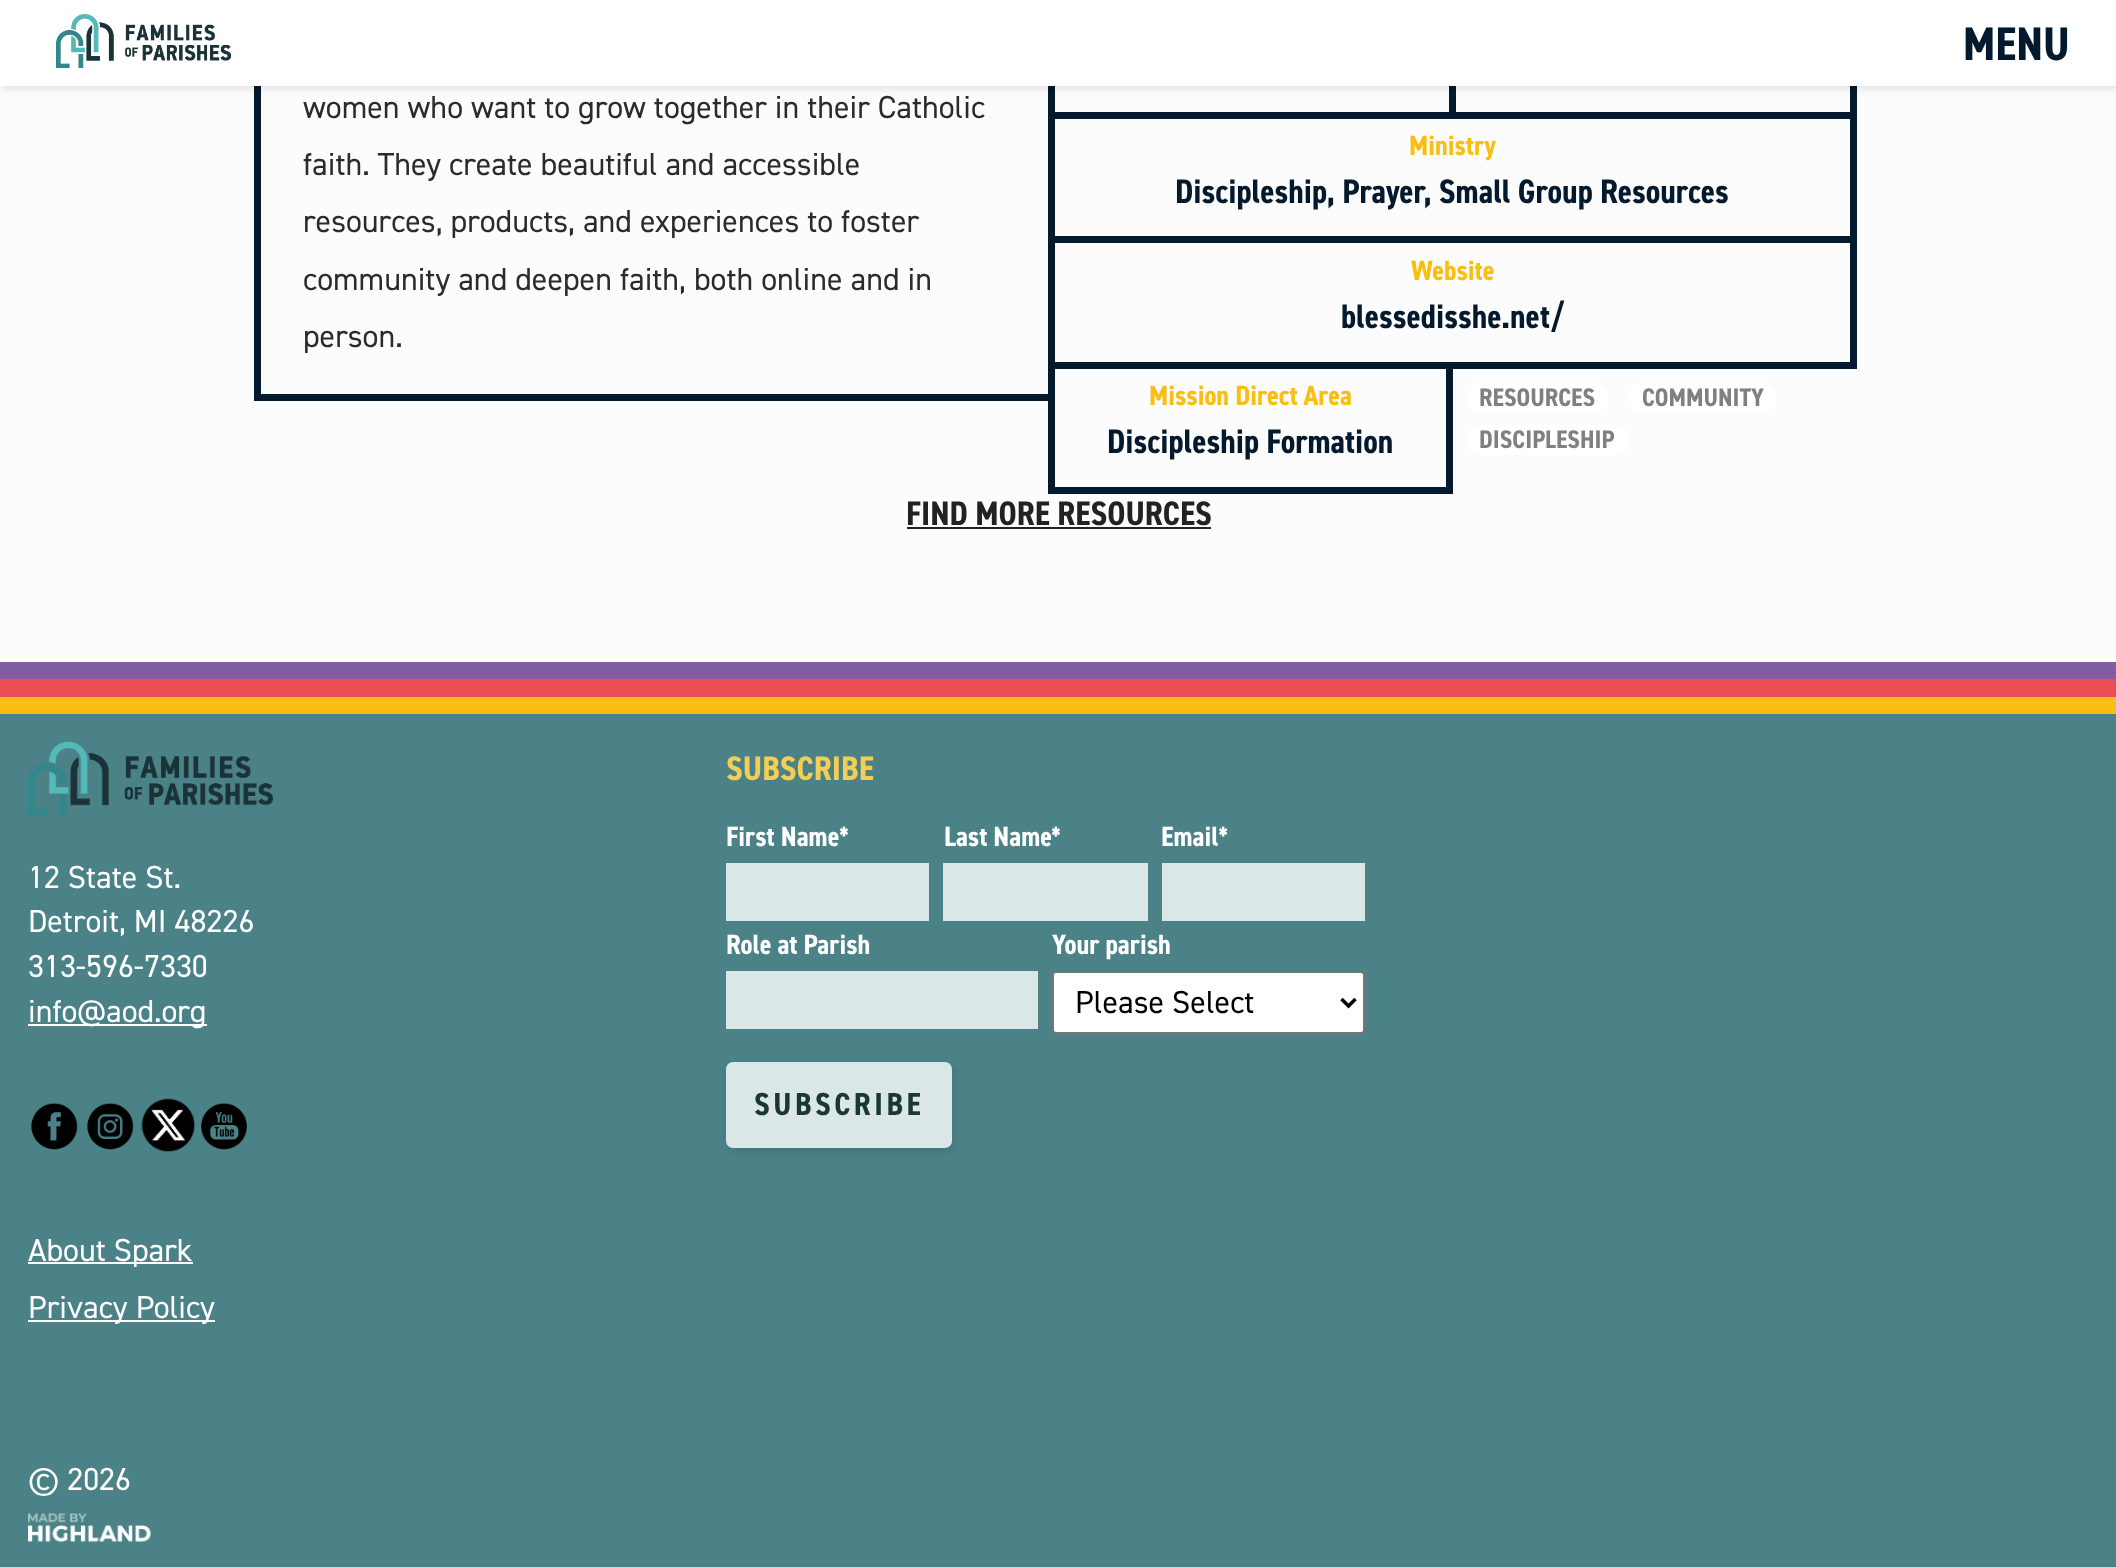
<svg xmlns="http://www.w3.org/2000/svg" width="2116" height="1567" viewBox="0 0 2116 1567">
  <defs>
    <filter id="blur1" x="-50%" y="-200%" width="200%" height="500%"><feGaussianBlur stdDeviation="3.5"/></filter>
    <clipPath id="clip1"><path d="M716 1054H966V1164H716ZM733 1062H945C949 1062 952 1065 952 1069V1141C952 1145 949 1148 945 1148H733C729 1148 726 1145 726 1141V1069C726 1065 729 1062 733 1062Z" clip-rule="evenodd"/></clipPath>
  </defs>
  <rect width="100%" height="100%" fill="#fcfcfc"/>
  <rect x="257.5" y="-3.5" width="794" height="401" fill="none" stroke="#03192e" stroke-width="7"/>
  <rect x="1051.5" y="-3.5" width="401" height="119" fill="none" stroke="#03192e" stroke-width="7"/>
  <rect x="1452.5" y="-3.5" width="401" height="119" fill="none" stroke="#03192e" stroke-width="7"/>
  <rect x="2" y="4" width="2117" height="85" fill="#000000" fill-opacity="0.1" filter="url(#blur1)"/>
  <rect x="0" y="0" width="2116" height="86" fill="#ffffff"/>
  <image x="56" y="14" width="175" height="54" href="img1.png"/>
  <text x="1963" y="60" font-family="'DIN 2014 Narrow'" font-size="47" font-weight="bold" fill="#b6d2d2">MENU</text>
  <text x="1963" y="60" font-family="'DIN 2014 Narrow'" font-size="47" font-weight="bold" fill="#03192e">MENU</text>
  <text x="303" y="118" font-family="'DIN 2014'" font-size="31.9" fill="#292c2e">women who want to grow together in their Catholic</text>
  <text x="303" y="175" font-family="'DIN 2014'" font-size="31.9" fill="#292c2e">faith. They create beautiful and accessible</text>
  <text x="303" y="232" font-family="'DIN 2014'" font-size="31.9" fill="#292c2e">resources, products, and experiences to foster</text>
  <text x="303" y="290" font-family="'DIN 2014'" font-size="31.9" fill="#292c2e">community and deepen faith, both online and in</text>
  <text x="303" y="347" font-family="'DIN 2014'" font-size="31.9" fill="#292c2e">person.</text>
  <rect x="1051.5" y="115.5" width="802" height="124" fill="none" stroke="#03192e" stroke-width="7"/>
  <text x="1409" y="155" font-family="'DIN 2014 Narrow'" font-size="28" font-weight="bold" fill="#f9be11">Ministry</text>
  <text x="1175" y="203" font-family="'DIN 2014 Narrow'" font-size="34" font-weight="bold" fill="#03192e">Discipleship, Prayer, Small Group Resources</text>
  <rect x="1051.5" y="239.5" width="802" height="126" fill="none" stroke="#03192e" stroke-width="7"/>
  <text x="1411" y="280" font-family="'DIN 2014 Narrow'" font-size="28" font-weight="bold" fill="#f9be11">Website</text>
  <text x="1341" y="328" font-family="'DIN 2014 Narrow'" font-size="34" font-weight="bold" fill="#03192e">blessedisshe.net/</text>
  <rect x="1051.5" y="365.5" width="398" height="125" fill="none" stroke="#03192e" stroke-width="7"/>
  <text x="1149" y="405" font-family="'DIN 2014 Narrow'" font-size="28" font-weight="bold" fill="#f9be11">Mission Direct Area</text>
  <text x="1107" y="453" font-family="'DIN 2014 Narrow'" font-size="34" font-weight="bold" fill="#03192e">Discipleship Formation</text>
  <rect x="1467" y="383" width="141" height="30" rx="15" fill="#ffffff"/>
  <text x="1479" y="406" font-family="'DIN 2014 Narrow'" font-size="25.5" font-weight="bold" fill="#808080">RESOURCES</text>
  <rect x="1629" y="383" width="147" height="30" rx="15" fill="#ffffff"/>
  <text x="1642" y="406" font-family="'DIN 2014 Narrow'" font-size="25.5" font-weight="bold" fill="#808080">COMMUNITY</text>
  <rect x="1467" y="425" width="161" height="30" rx="15" fill="#ffffff"/>
  <text x="1479" y="448" font-family="'DIN 2014 Narrow'" font-size="25.5" font-weight="bold" fill="#808080">DISCIPLESHIP</text>
  <text x="906" y="525" font-family="'DIN 2014 Narrow'" font-size="34" font-weight="bold" fill="#222222">FIND MORE RESOURCES</text>
  <rect x="907" y="527" width="304" height="2" fill="#222222"/>
  <rect x="0" y="714" width="2116" height="853" fill="#4a8287"/>
  <rect x="0" y="679" width="2116" height="18" fill="#eb4d54"/>
  <rect x="0" y="662" width="2116" height="17" fill="#825da1"/>
  <rect x="0" y="697" width="2116" height="17" fill="#f9be11"/>
  <image x="28" y="741" width="245" height="75" href="img2.png"/>
  <text x="28" y="888" font-family="'DIN 2014'" font-size="31.9" fill="#ffffff">12 State St.</text>
  <text x="28" y="932" font-family="'DIN 2014'" font-size="31.9" fill="#ffffff">Detroit, MI 48226</text>
  <text x="28" y="977" font-family="'DIN 2014'" font-size="31.9" fill="#ffffff">313-596-7330</text>
  <rect x="28" y="1024" width="179" height="2" fill="#ffffff"/>
  <text x="28" y="1022" font-family="'DIN 2014'" font-size="31.9" fill="#ffffff">info@aod.org</text>
  <image x="31" y="1103" width="47" height="47" href="img3.png"/>
  <image x="87" y="1103" width="47" height="47" href="img4.png"/>
  <image x="141" y="1098" width="54" height="54" href="img5.png"/>
  <image x="201" y="1103" width="46" height="47" href="img6.png"/>
  <rect x="28" y="1262" width="165" height="2" fill="#ffffff"/>
  <text x="28" y="1261" font-family="'DIN 2014'" font-size="31.9" fill="#ffffff">About Spark</text>
  <rect x="28" y="1320" width="187" height="2" fill="#ffffff"/>
  <text x="28" y="1318" font-family="'DIN 2014'" font-size="31.9" fill="#ffffff">Privacy Policy</text>
  <text x="28" y="1490" font-family="'DIN 2014'" font-size="31.9" fill="#ffffff">© 2026</text>
  <image x="28" y="1513" width="123" height="29" href="img7.png"/>
  <text x="726" y="780" font-family="'DIN 2014 Narrow'" font-size="34" font-weight="bold" fill="#f3ce56">SUBSCRIBE</text>
  <text x="726" y="846" font-family="'DIN 2014 Narrow'" font-size="28" font-weight="bold" fill="#ffffff">First Name</text>
  <text x="839" y="846" font-family="'DIN 2014 Narrow'" font-size="28" font-weight="bold" fill="#ffffff">*</text>
  <rect x="726" y="863" width="203" height="58" fill="#dbe6e7"/>
  <text x="944" y="846" font-family="'DIN 2014 Narrow'" font-size="28" font-weight="bold" fill="#ffffff">Last Name</text>
  <text x="1051" y="846" font-family="'DIN 2014 Narrow'" font-size="28" font-weight="bold" fill="#ffffff">*</text>
  <rect x="943" y="863" width="205" height="58" fill="#dbe6e7"/>
  <text x="1161" y="846" font-family="'DIN 2014 Narrow'" font-size="28" font-weight="bold" fill="#ffffff">Email*</text>
  <rect x="1162" y="863" width="203" height="58" fill="#dbe6e7"/>
  <text x="726" y="954" font-family="'DIN 2014 Narrow'" font-size="28" font-weight="bold" fill="#ffffff">Role at Parish</text>
  <rect x="726" y="971" width="312" height="58" fill="#dbe6e7"/>
  <text x="1052" y="954" font-family="'DIN 2014 Narrow'" font-size="28" font-weight="bold" fill="#ffffff">Your parish</text>
  <rect x="1053" y="972" width="311" height="61" rx="3" fill="#ffffff" stroke="#767676" stroke-width="2"/>
  <path d="M1341.5 999L1348.5 1006L1355.5 999" fill="none" stroke="#000000" stroke-width="3.5"/>
  <text x="1075" y="1013" font-family="'DIN 2014'" font-size="31.9" fill="#000000">Please Select</text>
  <g clip-path="url(#clip1)">
    <rect x="728" y="1066" width="226" height="86" rx="7" fill="#000000" fill-opacity="0.1" filter="url(#blur1)"/>
  </g>
  <rect x="726" y="1062" width="226" height="86" rx="7" fill="#ffffff" fill-opacity="0.8"/>
  <text x="754" y="1115" font-family="'DIN 2014 Narrow'" font-size="31.9" font-weight="bold" letter-spacing="3.5" fill="#1b3830">SUBSCRIBE</text>
</svg>
